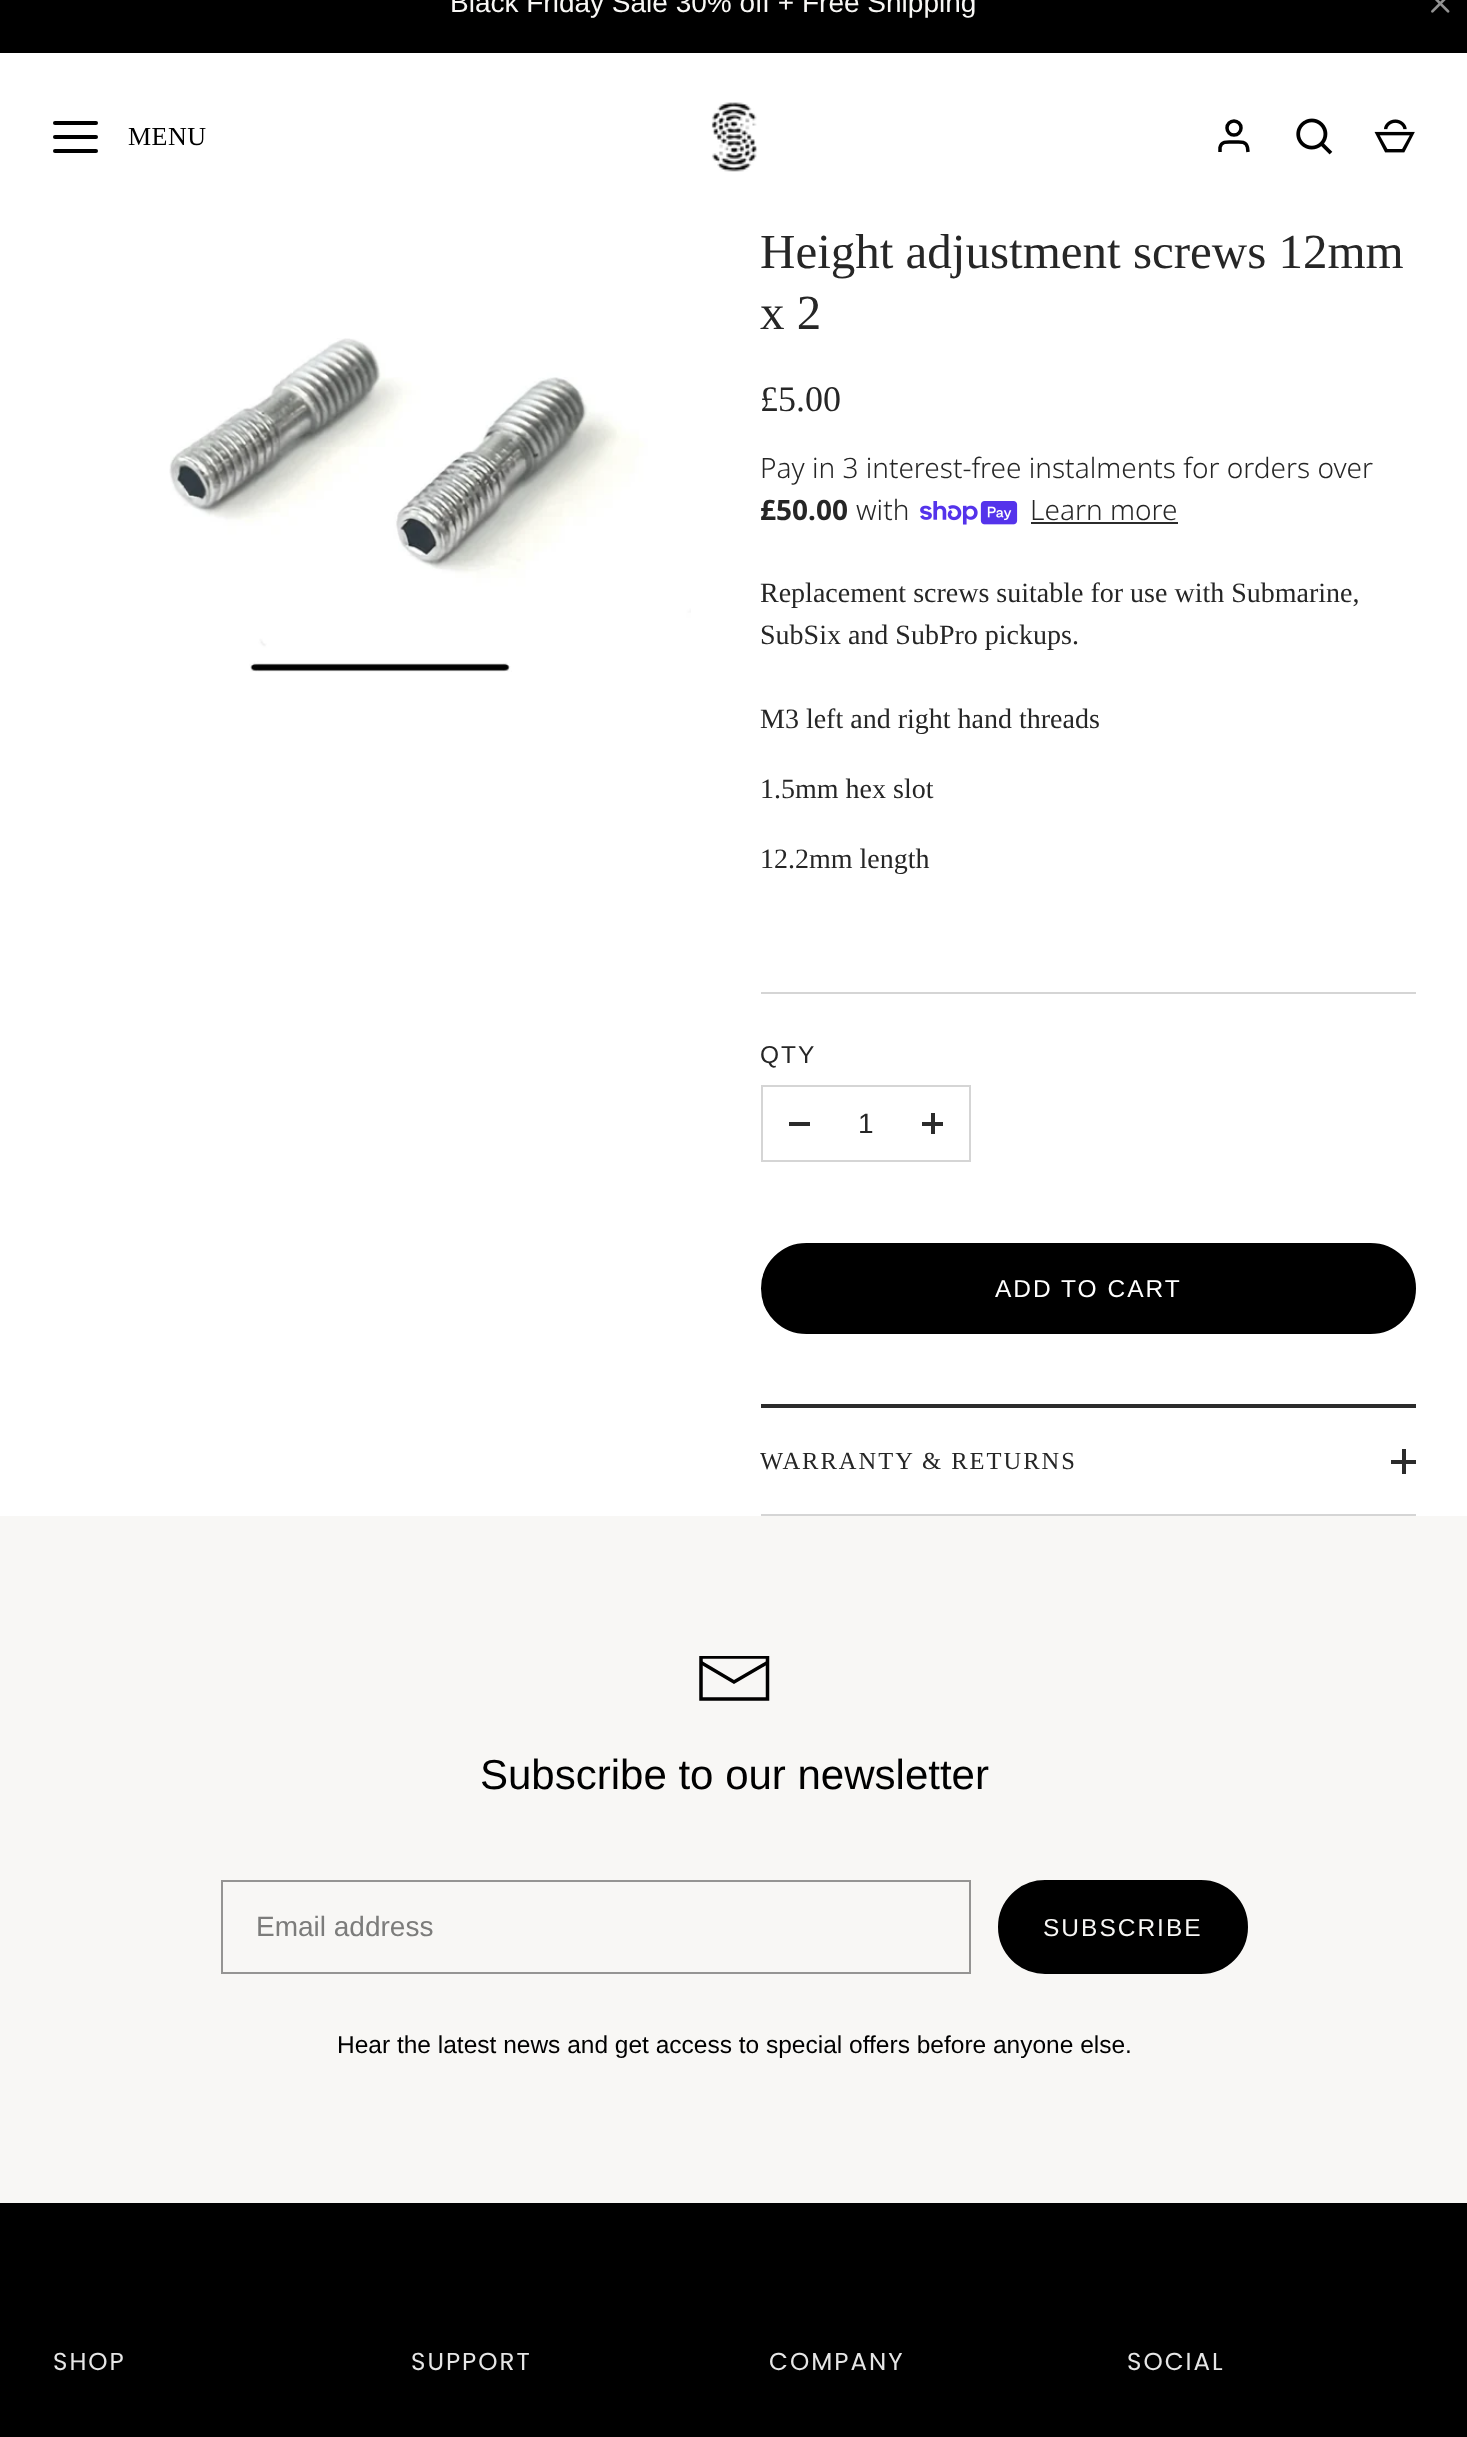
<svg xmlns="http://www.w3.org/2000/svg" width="1467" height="2437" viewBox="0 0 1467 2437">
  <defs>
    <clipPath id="clip1"><rect x="698" y="1656" width="72" height="45"/></clipPath>
  </defs>
  <rect width="100%" height="100%" fill="#ffffff"/>
  <rect x="0" y="0" width="1467" height="53" fill="#000000"/>
  <text x="450" y="12" font-family="Liberation Sans" font-size="28" fill="#f8f7f5">Black Friday Sale 30% off + Free Shipping</text>
  <image x="1431" y="0" width="19" height="13" href="img1.png"/>
  <rect x="53" y="121" width="45" height="4" rx="2" fill="#000000"/>
  <rect x="53" y="135" width="45" height="4" rx="2" fill="#000000"/>
  <rect x="53" y="149" width="45" height="4" rx="2" fill="#000000"/>
  <text x="128" y="145" font-family="Liberation Serif" font-size="26" letter-spacing="0.5" fill="#000000">MENU</text>
  <image x="711" y="102" width="47" height="70" href="img2.png"/>
  <circle cx="1234" cy="128" r="7" fill="none" stroke="#000000" stroke-width="3.5"/>
  <path d="M1248 152L1247.5 147.5C1246 140.5 1239 142 1234 142C1228.5 142 1221.5 140.5 1220 147.5V152" fill="none" stroke="#000000" stroke-width="3.5"/>
  <image x="1296" y="118" width="37" height="37" href="img3.png"/>
  <image x="1374" y="119" width="41" height="34" href="img4.png"/>
  <image x="169" y="338" width="522" height="334" href="img5.png"/>
  <text x="760" y="268" font-family="Liberation Serif" font-size="49" fill="#262626">Height adjustment screws 12mm</text>
  <text x="760" y="329" font-family="Liberation Serif" font-size="49" fill="#262626">x 2</text>
  <text x="760" y="411" font-family="Liberation Serif" font-size="36" fill="#262626">£5.00</text>
  <text x="760" y="478" font-family="Noto Sans" font-size="28" font-weight="300" fill="#262626">Pay in 3 interest-free instalments for orders over</text>
  <text x="760" y="520" font-family="Noto Sans" font-size="28" font-weight="bold" fill="#262626">£50.00</text>
  <text x="856" y="520" font-family="Noto Sans" font-size="28" font-weight="300" fill="#262626">with</text>
  <image x="920" y="501" width="98" height="24" href="img6.png"/>
  <text x="1030" y="520" font-family="Noto Sans" font-size="28" font-weight="300" fill="#262626">Learn more</text>
  <rect x="1031" y="522" width="147" height="2" fill="#2b2b2b"/>
  <text x="760" y="602" font-family="Liberation Serif" font-size="28" fill="#262626">Replacement screws suitable for use with Submarine,</text>
  <text x="760" y="644" font-family="Liberation Serif" font-size="28" fill="#262626">SubSix and SubPro pickups.</text>
  <text x="760" y="728" font-family="Liberation Serif" font-size="28" fill="#262626">M3 left and right hand threads</text>
  <text x="760" y="798" font-family="Liberation Serif" font-size="28" fill="#262626">1.5mm hex slot</text>
  <text x="760" y="868" font-family="Liberation Serif" font-size="28" fill="#262626">12.2mm length</text>
  <rect x="761" y="992" width="655" height="2" fill="#d5d5d5"/>
  <text x="760" y="1063" font-family="Liberation Sans" font-size="24.5" letter-spacing="2" fill="#262626">QTY</text>
  <rect x="762" y="1086" width="208" height="75" fill="none" stroke="#d5d5d5" stroke-width="2"/>
  <rect x="789" y="1122" width="21" height="4" fill="#2b2b2b"/>
  <text x="858" y="1133" font-family="Liberation Sans" font-size="28" fill="#262626">1</text>
  <rect x="922" y="1122" width="21" height="4" fill="#2b2b2b"/>
  <rect x="931" y="1113" width="4" height="21" fill="#2b2b2b"/>
  <rect x="763" y="1245" width="651" height="87" rx="43.5" fill="#000000" stroke="#000000" stroke-width="4"/>
  <text x="995" y="1297" font-family="Liberation Sans" font-size="24.5" letter-spacing="2" fill="#ffffff">ADD TO CART</text>
  <rect x="761" y="1404" width="655" height="4" fill="#2b2b2b"/>
  <rect x="761" y="1514" width="655" height="2" fill="#d5d5d5"/>
  <text x="760" y="1469" font-family="Liberation Serif" font-size="24.5" letter-spacing="2" fill="#262626">WARRANTY &amp; RETURNS</text>
  <rect x="1391" y="1460" width="25" height="4" fill="#2b2b2b"/>
  <rect x="1402" y="1449" width="4" height="25" fill="#2b2b2b"/>
  <rect x="0" y="1516" width="1467" height="687" fill="#f8f7f5"/>
  <g clip-path="url(#clip1)">
    <path d="M701 1657V1699H767.5V1657Z" fill="none" stroke="#000000" stroke-width="3.5"/>
  </g>
  <path d="M701 1662.5L734 1682L767.5 1662.5" fill="none" stroke="#000000" stroke-width="3.5"/>
  <text x="480" y="1789" font-family="Liberation Sans" font-size="42" fill="#000000">Subscribe to our newsletter</text>
  <rect x="222" y="1881" width="748" height="92" fill="none" stroke="#959493" stroke-width="2"/>
  <text x="256" y="1936" font-family="Liberation Sans" font-size="28" fill="#7c7c7b">Email address</text>
  <rect x="1000" y="1882" width="246" height="90" rx="45" fill="#000000" stroke="#000000" stroke-width="4"/>
  <text x="1043" y="1936" font-family="Liberation Sans" font-size="24.5" letter-spacing="2" fill="#f8f7f5">SUBSCRIBE</text>
  <text x="337" y="2053" font-family="Liberation Sans" font-size="24.5" fill="#000000">Hear the latest news and get access to special offers before anyone else.</text>
  <rect x="0" y="2203" width="1467" height="234" fill="#000000"/>
  <text x="53" y="2370" font-family="Poppins" font-size="24.5" letter-spacing="2" fill="#e6e6e6">SHOP</text>
  <text x="411" y="2370" font-family="Poppins" font-size="24.5" letter-spacing="2" fill="#e6e6e6">SUPPORT</text>
  <text x="769" y="2370" font-family="Poppins" font-size="24.5" letter-spacing="2" fill="#e6e6e6">COMPANY</text>
  <text x="1127" y="2370" font-family="Poppins" font-size="24.5" letter-spacing="2" fill="#e6e6e6">SOCIAL</text>
</svg>
